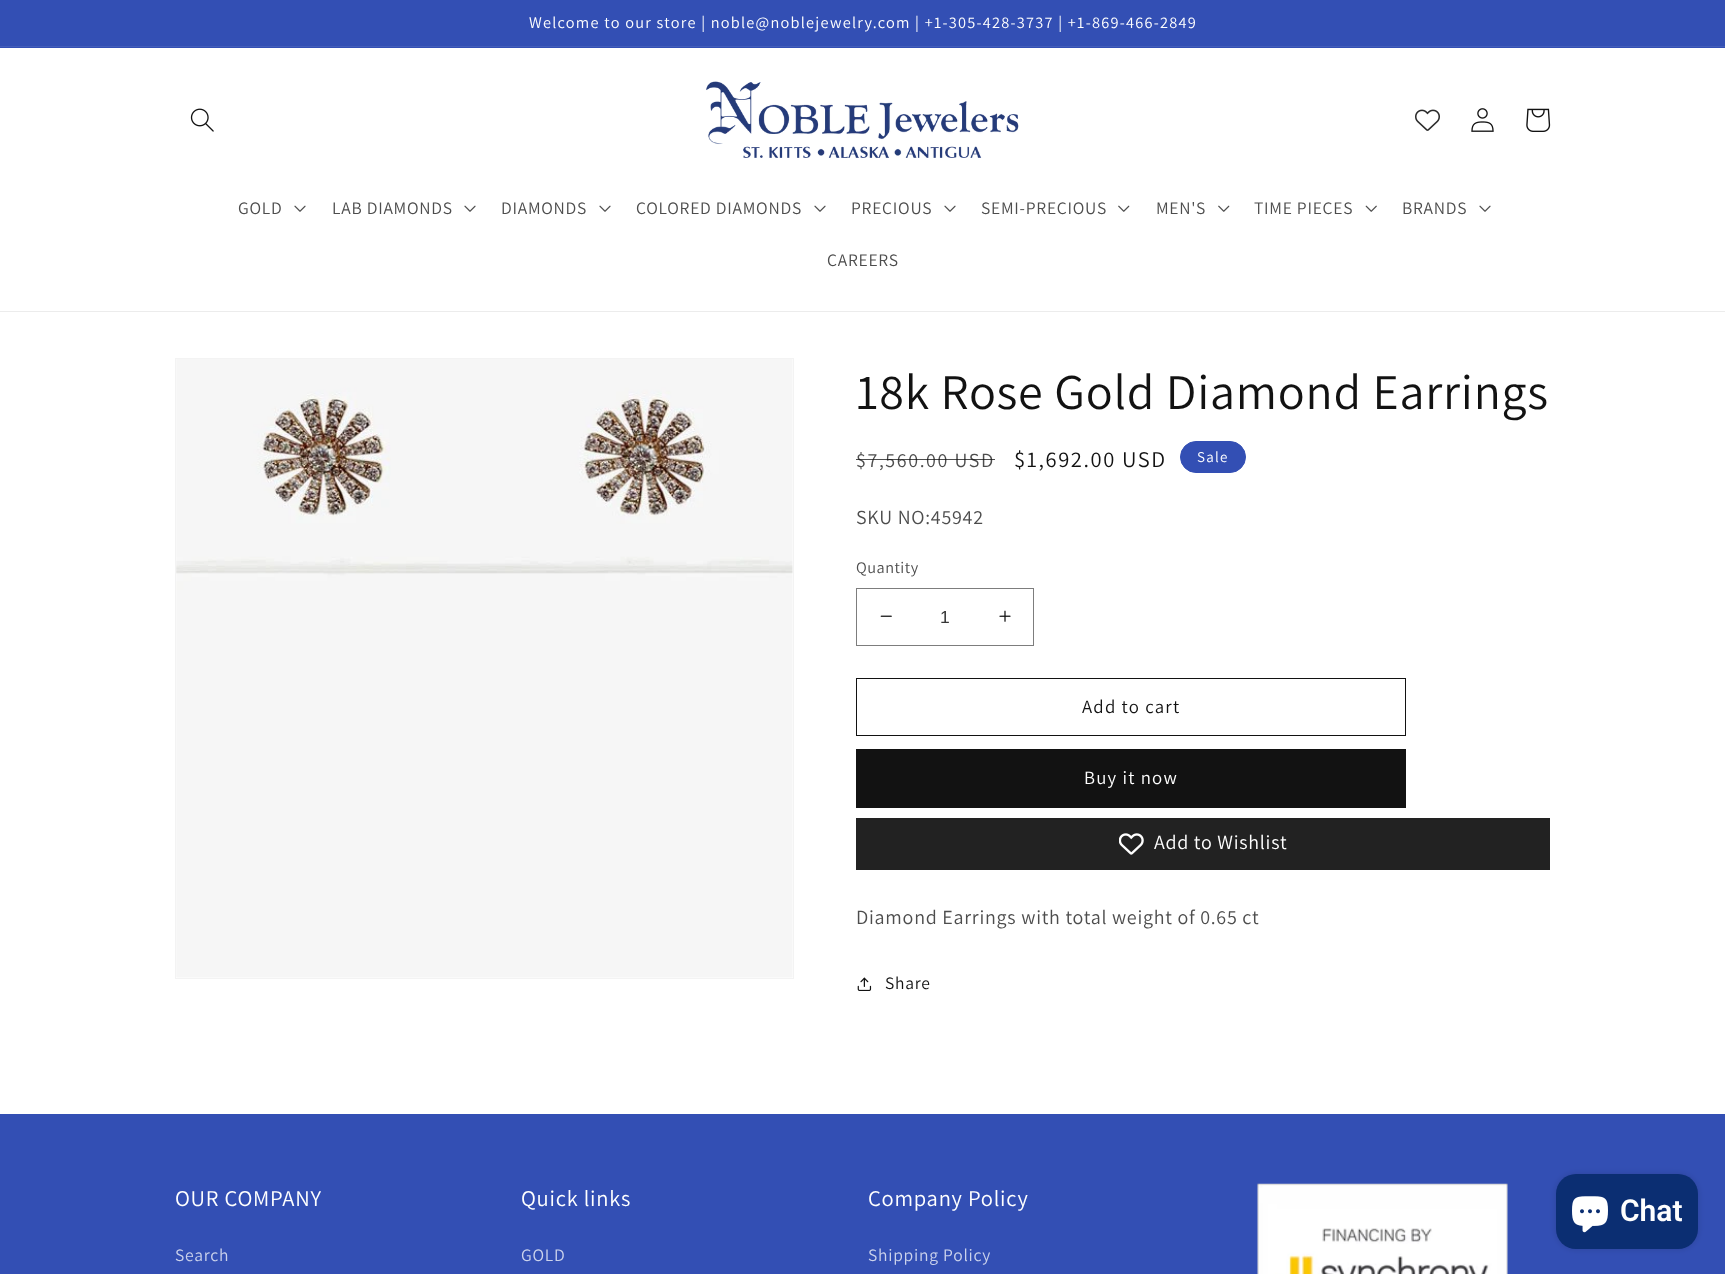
<svg xmlns="http://www.w3.org/2000/svg" width="1725" height="1274" viewBox="0 0 1725 1274">
  <defs>
    <filter id="blur1" x="-50%" y="-200%" width="200%" height="500%"><feGaussianBlur stdDeviation="3"/></filter>
  </defs>
  <rect width="100%" height="100%" fill="#ffffff"/>
  <rect x="0" y="0" width="1725" height="48" fill="#334fb4"/>
  <rect x="0" y="46" width="1725" height="1" fill="#435dba"/>
  <text x="529" y="28" font-family="Assistant" font-size="16.25" letter-spacing="1.25" fill="#ffffff">Welcome to our store | noble@noblejewelry.com | +1-305-428-3737 | +1-869-466-2849</text>
  <rect x="0" y="311" width="1725" height="1" fill="#ececec"/>
  <image x="190" y="108" width="24" height="24" href="img1.png"/>
  <image x="706" y="81" width="313" height="77" href="img2.png"/>
  <image x="1415" y="109" width="25" height="22" href="img3.png"/>
  <image x="1471" y="108" width="23" height="24" href="img4.png"/>
  <image x="1526" y="108" width="25" height="24" href="img5.png"/>
  <text x="238" y="214" font-family="Assistant" font-size="17.5" letter-spacing="0.75" fill="#4d4d4d">GOLD</text>
  <image x="294" y="205" width="12" height="7" href="img6.png"/>
  <text x="332" y="214" font-family="Assistant" font-size="17.5" letter-spacing="0.75" fill="#4d4d4d">LAB DIAMONDS</text>
  <image x="464" y="205" width="12" height="7" href="img6.png"/>
  <text x="501" y="214" font-family="Assistant" font-size="17.5" letter-spacing="0.75" fill="#4d4d4d">DIAMONDS</text>
  <image x="599" y="205" width="12" height="7" href="img6.png"/>
  <text x="636" y="214" font-family="Assistant" font-size="17.5" letter-spacing="0.75" fill="#4d4d4d">COLORED DIAMONDS</text>
  <image x="814" y="205" width="12" height="7" href="img6.png"/>
  <text x="851" y="214" font-family="Assistant" font-size="17.5" letter-spacing="0.75" fill="#4d4d4d">PRECIOUS</text>
  <image x="944" y="205" width="12" height="7" href="img6.png"/>
  <text x="981" y="214" font-family="Assistant" font-size="17.5" letter-spacing="0.75" fill="#4d4d4d">SEMI-PRECIOUS</text>
  <image x="1118" y="205" width="12" height="7" href="img7.png"/>
  <text x="1156" y="214" font-family="Assistant" font-size="17.5" letter-spacing="0.75" fill="#4d4d4d">MEN'S</text>
  <image x="1218" y="205" width="12" height="7" href="img7.png"/>
  <text x="1254" y="214" font-family="Assistant" font-size="17.5" letter-spacing="0.75" fill="#4d4d4d">TIME PIECES</text>
  <image x="1365" y="205" width="12" height="7" href="img8.png"/>
  <text x="1402" y="214" font-family="Assistant" font-size="17.5" letter-spacing="0.75" fill="#4d4d4d">BRANDS</text>
  <image x="1479" y="205" width="12" height="7" href="img6.png"/>
  <text x="827" y="266" font-family="Assistant" font-size="17.5" letter-spacing="0.75" fill="#4d4d4d">CAREERS</text>
  <rect x="175.5" y="358.5" width="618" height="620" fill="none" stroke="#f3f3f3"/>
  <image x="176" y="359" width="617" height="619" href="img9.png"/>
  <text x="856" y="409" font-family="Assistant" font-size="50" letter-spacing="0.75" fill="#121212">18k Rose Gold Diamond Earrings</text>
  <text x="856" y="467" font-family="Assistant" font-size="20" letter-spacing="1.6" fill="#4d4d4d">$7,560.00 USD</text>
  <rect x="856" y="459" width="139" height="1" fill="#121212" fill-opacity="0.75"/>
  <text x="1014" y="467" font-family="Assistant" font-size="22.5" letter-spacing="1.6" fill="#121212">$1,692.00 USD</text>
  <rect x="1180.5" y="441.5" width="65" height="31" rx="15.5" fill="#334fb4" stroke="#334fb4"/>
  <text x="1197" y="462" font-family="Assistant" font-size="15" letter-spacing="1.25" fill="#ffffff">Sale</text>
  <text x="856" y="524" font-family="Assistant" font-size="20" letter-spacing="0.75" fill="#4d4d4d">SKU NO:45942</text>
  <text x="856" y="573" font-family="Assistant" font-size="16.25" letter-spacing="0.5" fill="#4d4d4d">Quantity</text>
  <image x="880" y="615" width="12" height="2" href="img10.png"/>
  <image x="999" y="610" width="12" height="12" href="img11.png"/>
  <rect x="856.5" y="588.5" width="177" height="57" fill="none" stroke="#7d7d7d"/>
  <text x="940" y="623" font-family="Liberation Sans" font-size="17.5" fill="#363636">1</text>
  <rect x="856.5" y="678.5" width="549" height="57" fill="none" stroke="#121212"/>
  <text x="1082" y="713" font-family="Assistant" font-size="18.75" letter-spacing="1.25" fill="#121212">Add to cart</text>
  <rect x="856" y="749" width="550" height="59" fill="#121212"/>
  <text x="1084" y="784" font-family="Assistant" font-size="18.75" letter-spacing="1.25" fill="#ffffff">Buy it now</text>
  <rect x="856" y="818" width="694" height="52" fill="#222222"/>
  <image x="1119" y="833" width="25" height="22" href="img12.png"/>
  <text x="1154" y="849" font-family="Assistant" font-size="20" letter-spacing="0.75" fill="#ffffff">Add to Wishlist</text>
  <text x="856" y="924" font-family="Assistant" font-size="20" letter-spacing="0.75" fill="#4d4d4d">Diamond Earrings with total weight of 0.65 ct</text>
  <image x="857" y="977" width="15" height="14" href="img13.png"/>
  <text x="885" y="989" font-family="Assistant" font-size="17.5" letter-spacing="0.75" fill="#121212">Share</text>
  <rect x="0" y="1114" width="1725" height="160" fill="#334fb4"/>
  <text x="175" y="1206" font-family="Assistant" font-size="22.5" letter-spacing="0.75" fill="#ffffff">OUR COMPANY</text>
  <text x="175" y="1261" font-family="Assistant" font-size="17.5" letter-spacing="0.75" fill="#ccd3ec">Search</text>
  <text x="521" y="1206" font-family="Assistant" font-size="22.5" letter-spacing="0.75" fill="#ffffff">Quick links</text>
  <text x="521" y="1261" font-family="Assistant" font-size="17.5" letter-spacing="0.75" fill="#ccd3ec">GOLD</text>
  <text x="868" y="1206" font-family="Assistant" font-size="22.5" letter-spacing="0.75" fill="#ffffff">Company Policy</text>
  <text x="868" y="1261" font-family="Assistant" font-size="17.5" letter-spacing="0.75" fill="#ccd3ec">Shipping Policy</text>
  <image x="1257" y="1183" width="251" height="91" href="img14.png"/>
  <rect x="1556" y="1174" width="142" height="75" rx="20" fill="#000000" fill-opacity="0.15" filter="url(#blur1)"/>
  <rect x="1556" y="1174" width="142" height="75" rx="20" fill="#0b2e72"/>
  <image x="1572" y="1196" width="36" height="37" href="img15.png"/>
  <text x="1620" y="1221" font-family="Roboto" font-size="30" font-weight="600" fill="#ffffff">Chat</text>
</svg>
